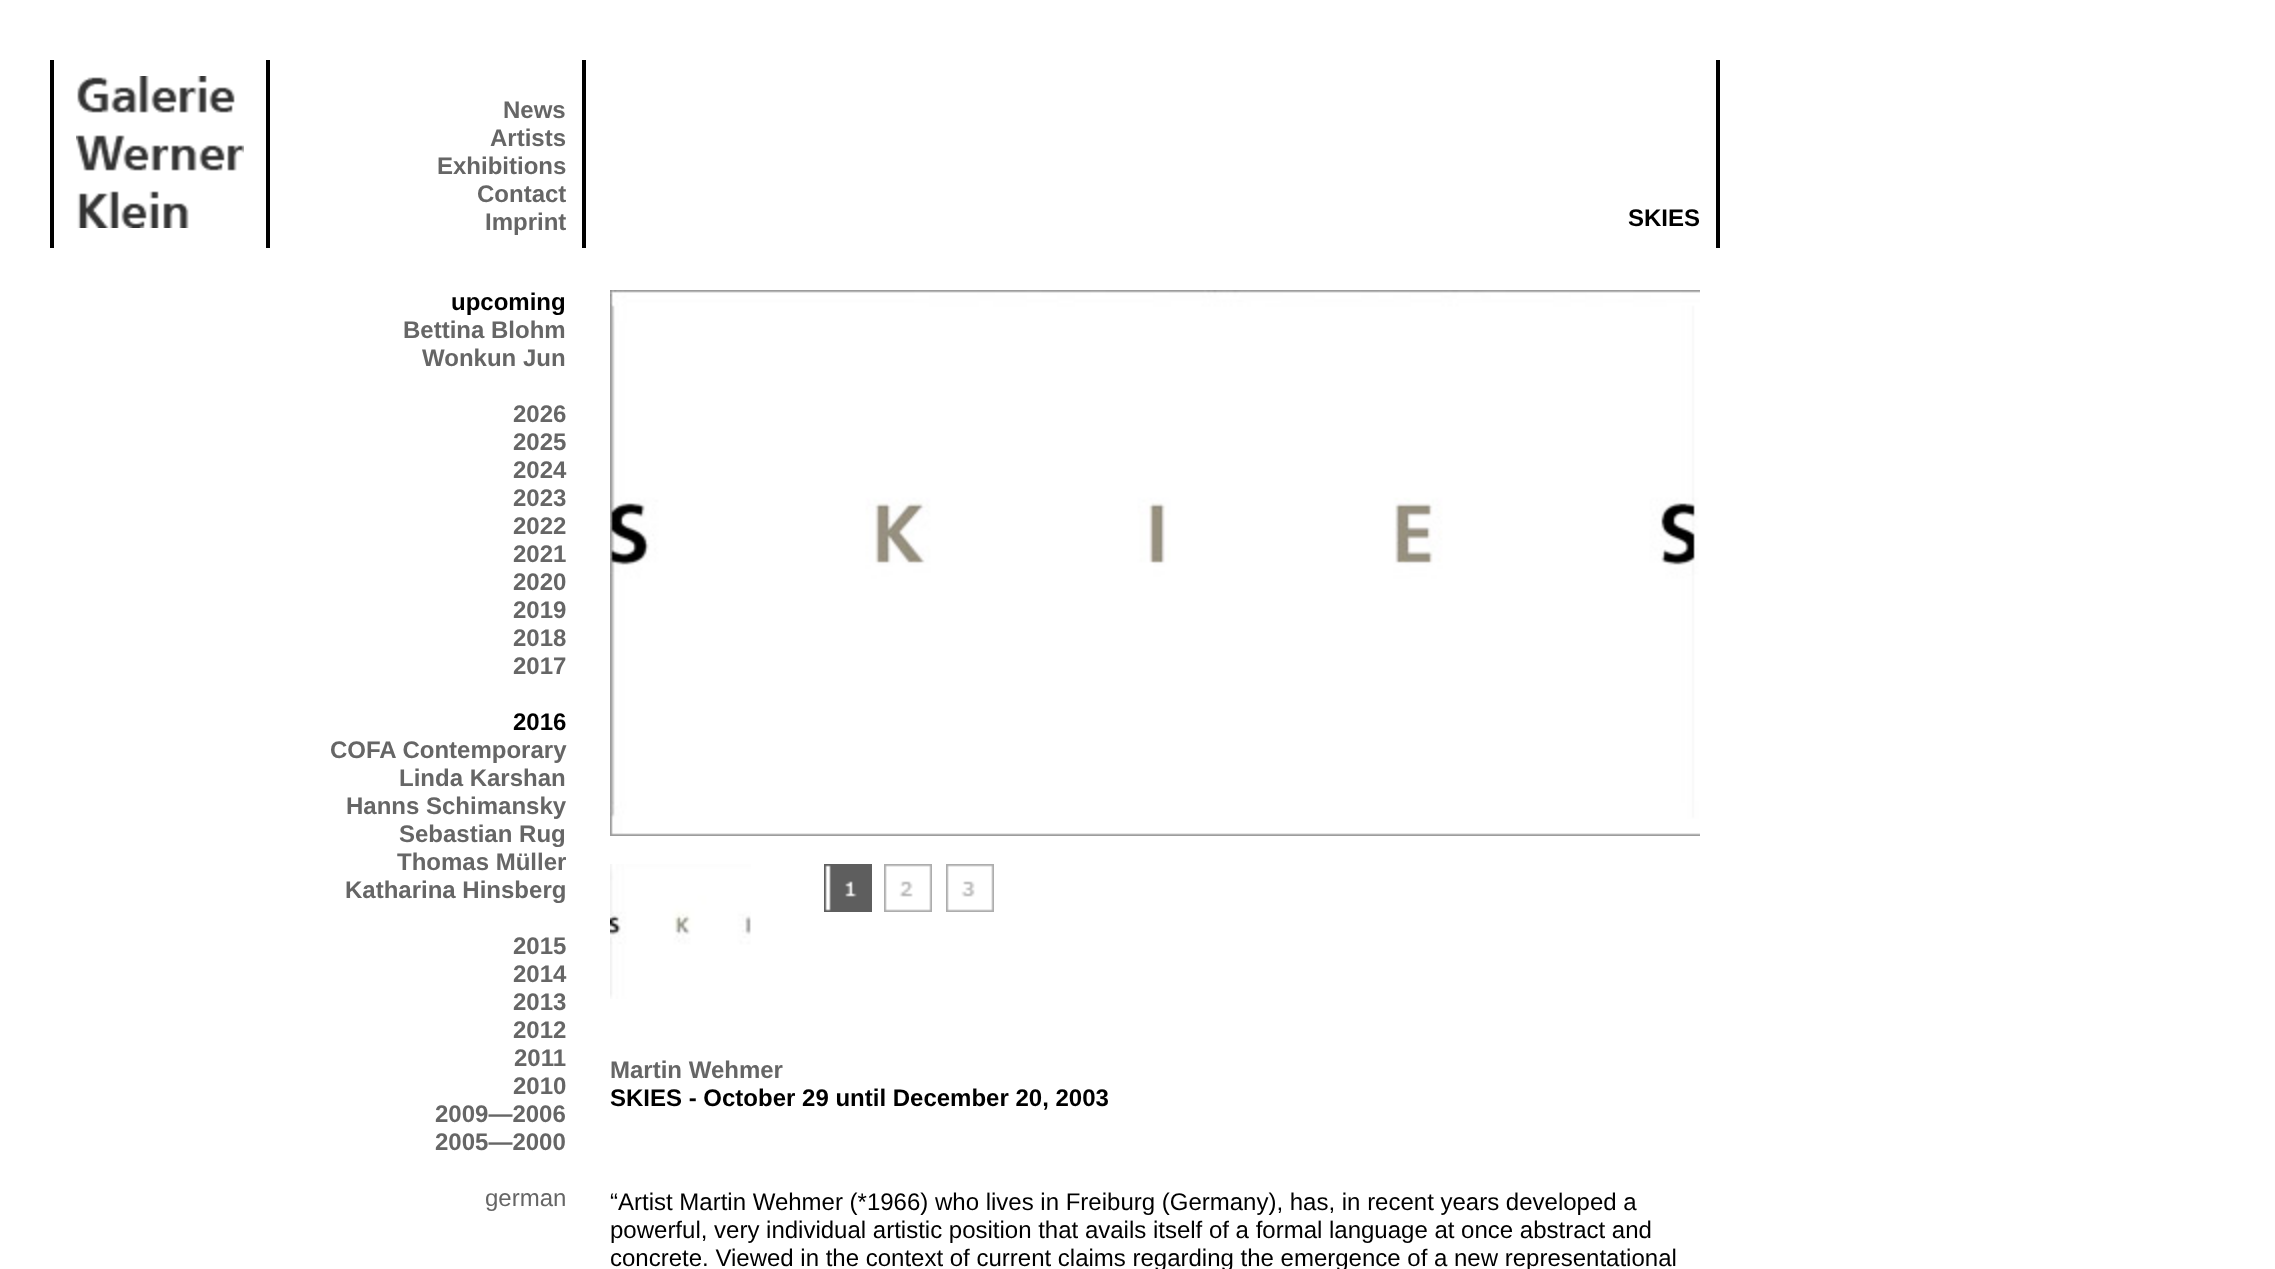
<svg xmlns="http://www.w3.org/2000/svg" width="2275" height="1269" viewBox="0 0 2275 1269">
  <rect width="100%" height="100%" fill="#ffffff"/>
  <rect x="266" y="60" width="4" height="188" fill="#000000"/>
  <rect x="50" y="60" width="4" height="188" fill="#000000"/>
  <image x="76" y="76" width="168" height="152" href="img1.png"/>
  <rect x="582" y="60" width="4" height="188" fill="#000000"/>
  <text x="503" y="118" font-family="Liberation Sans" font-size="24" font-weight="bold" fill="#666666">News</text>
  <text x="490" y="146" font-family="Liberation Sans" font-size="24" font-weight="bold" fill="#666666">Artists</text>
  <text x="437" y="174" font-family="Liberation Sans" font-size="24" font-weight="bold" fill="#666666">Exhibitions</text>
  <text x="477" y="202" font-family="Liberation Sans" font-size="24" font-weight="bold" fill="#666666">Contact</text>
  <text x="485" y="230" font-family="Liberation Sans" font-size="24" font-weight="bold" fill="#666666">Imprint</text>
  <rect x="1716" y="60" width="4" height="188" fill="#000000"/>
  <text x="1628" y="226" font-family="Liberation Sans" font-size="24" font-weight="bold" fill="#000000">SKIES</text>
  <text x="451" y="310" font-family="Liberation Sans" font-size="24" font-weight="bold" fill="#000000">upcoming</text>
  <text x="403" y="338" font-family="Liberation Sans" font-size="24" font-weight="bold" fill="#666666">Bettina Blohm</text>
  <text x="422" y="366" font-family="Liberation Sans" font-size="24" font-weight="bold" fill="#666666">Wonkun Jun</text>
  <text x="513" y="422" font-family="Liberation Sans" font-size="24" font-weight="bold" fill="#666666">2026</text>
  <text x="513" y="450" font-family="Liberation Sans" font-size="24" font-weight="bold" fill="#666666">2025</text>
  <text x="513" y="478" font-family="Liberation Sans" font-size="24" font-weight="bold" fill="#666666">2024</text>
  <text x="513" y="506" font-family="Liberation Sans" font-size="24" font-weight="bold" fill="#666666">2023</text>
  <text x="513" y="534" font-family="Liberation Sans" font-size="24" font-weight="bold" fill="#666666">2022</text>
  <text x="513" y="562" font-family="Liberation Sans" font-size="24" font-weight="bold" fill="#666666">2021</text>
  <text x="513" y="590" font-family="Liberation Sans" font-size="24" font-weight="bold" fill="#666666">2020</text>
  <text x="513" y="618" font-family="Liberation Sans" font-size="24" font-weight="bold" fill="#666666">2019</text>
  <text x="513" y="646" font-family="Liberation Sans" font-size="24" font-weight="bold" fill="#666666">2018</text>
  <text x="513" y="674" font-family="Liberation Sans" font-size="24" font-weight="bold" fill="#666666">2017</text>
  <text x="513" y="730" font-family="Liberation Sans" font-size="24" font-weight="bold" fill="#000000">2016</text>
  <text x="330" y="758" font-family="Liberation Sans" font-size="24" font-weight="bold" fill="#666666">COFA Contemporary</text>
  <text x="399" y="786" font-family="Liberation Sans" font-size="24" font-weight="bold" fill="#666666">Linda Karshan</text>
  <text x="346" y="814" font-family="Liberation Sans" font-size="24" font-weight="bold" fill="#666666">Hanns Schimansky</text>
  <text x="399" y="842" font-family="Liberation Sans" font-size="24" font-weight="bold" fill="#666666">Sebastian Rug</text>
  <text x="397" y="870" font-family="Liberation Sans" font-size="24" font-weight="bold" fill="#666666">Thomas Müller</text>
  <text x="345" y="898" font-family="Liberation Sans" font-size="24" font-weight="bold" fill="#666666">Katharina Hinsberg</text>
  <text x="513" y="954" font-family="Liberation Sans" font-size="24" font-weight="bold" fill="#666666">2015</text>
  <text x="513" y="982" font-family="Liberation Sans" font-size="24" font-weight="bold" fill="#666666">2014</text>
  <text x="513" y="1010" font-family="Liberation Sans" font-size="24" font-weight="bold" fill="#666666">2013</text>
  <text x="513" y="1038" font-family="Liberation Sans" font-size="24" font-weight="bold" fill="#666666">2012</text>
  <text x="514" y="1066" font-family="Liberation Sans" font-size="24" font-weight="bold" fill="#666666">2011</text>
  <text x="513" y="1094" font-family="Liberation Sans" font-size="24" font-weight="bold" fill="#666666">2010</text>
  <text x="435" y="1122" font-family="Liberation Sans" font-size="24" font-weight="bold" fill="#666666">2009—2006</text>
  <text x="435" y="1150" font-family="Liberation Sans" font-size="24" font-weight="bold" fill="#666666">2005—2000</text>
  <text x="485" y="1206" font-family="Liberation Sans" font-size="24" fill="#666666">german</text>
  <image x="610" y="290" width="1090" height="546" href="img2.png"/>
  <image x="610" y="864" width="141" height="135" href="img3.png"/>
  <image x="824" y="864" width="48" height="48" href="img4.png"/>
  <image x="884" y="864" width="48" height="48" href="img5.png"/>
  <image x="946" y="864" width="48" height="48" href="img6.png"/>
  <text x="610" y="1078" font-family="Liberation Sans" font-size="24" font-weight="bold" fill="#666666">Martin Wehmer</text>
  <text x="610" y="1106" font-family="Liberation Sans" font-size="24" font-weight="bold" fill="#000000">SKIES - October 29 until December 20, 2003</text>
  <text x="610" y="1210" font-family="Liberation Sans" font-size="24" fill="#000000">“Artist Martin Wehmer (*1966) who lives in Freiburg (Germany), has, in recent years developed a</text>
  <text x="610" y="1238" font-family="Liberation Sans" font-size="24" fill="#000000">powerful, very individual artistic position that avails itself of a formal language at once abstract and</text>
  <text x="610" y="1266" font-family="Liberation Sans" font-size="24" fill="#000000">concrete. Viewed in the context of current claims regarding the emergence of a new representational</text>
</svg>
